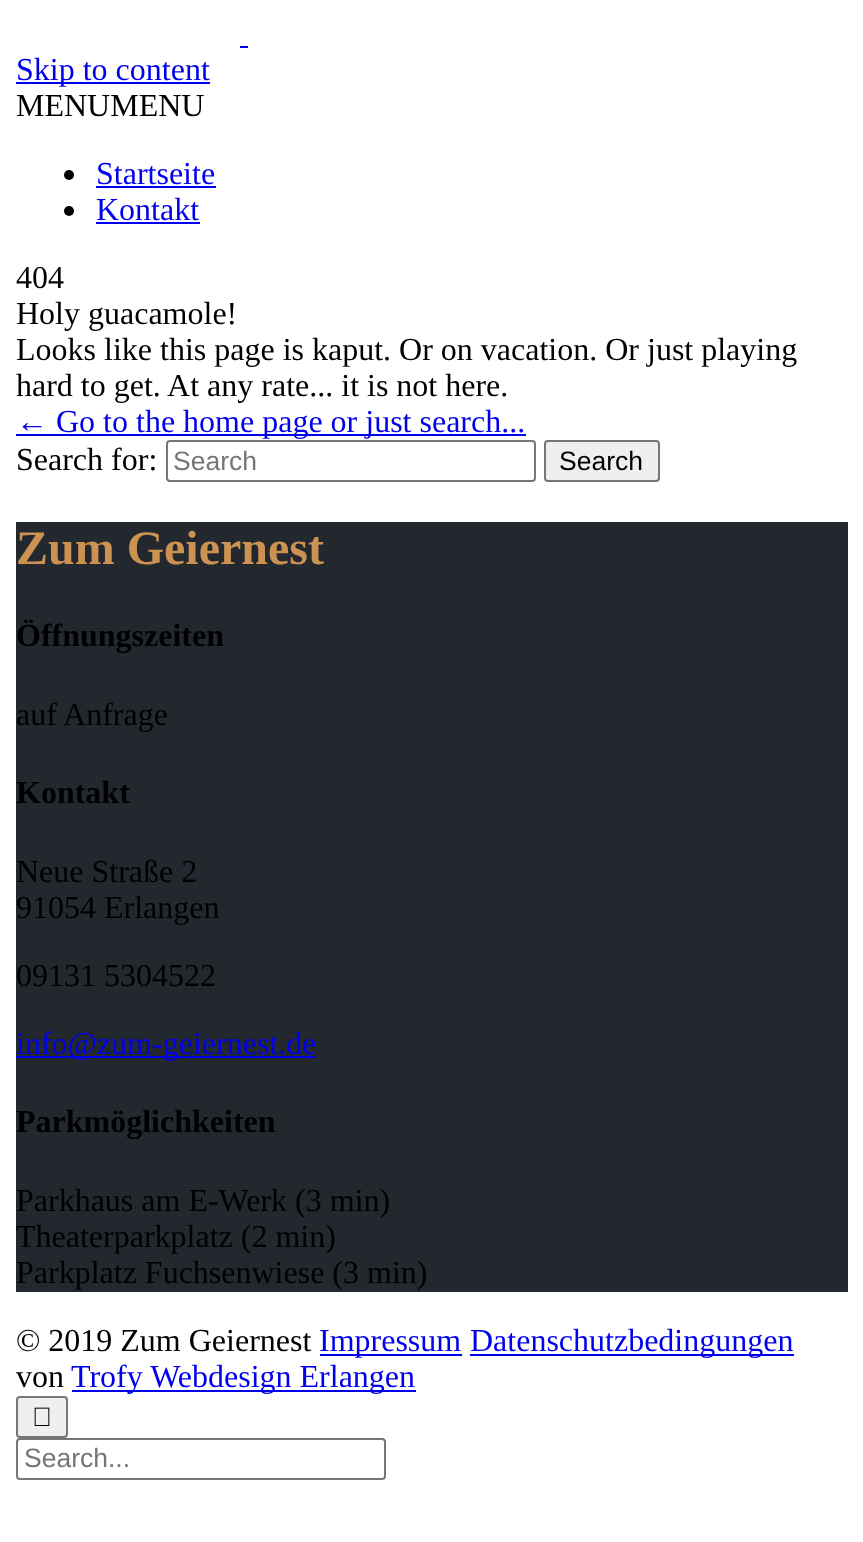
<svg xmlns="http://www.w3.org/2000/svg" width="863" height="1542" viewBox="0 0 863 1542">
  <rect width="100%" height="100%" fill="#ffffff"/>
  <rect x="240" y="46" width="8" height="2" fill="#0000ee"/>
  <rect x="16" y="82" width="194" height="2" fill="#0000ee"/>
  <text x="16" y="80" font-family="Liberation Serif" font-size="32" fill="#0000ee">Skip to content</text>
  <text x="16" y="116" font-family="Liberation Serif" font-size="32" fill="#000000">MENUMENU</text>
  <circle cx="69" cy="175" r="5" fill="#000000"/>
  <text x="96" y="184" font-family="Liberation Serif" font-size="32" fill="#0000ee">Startseite</text>
  <rect x="96" y="186" width="120" height="2" fill="#0000ee"/>
  <circle cx="69" cy="211" r="5" fill="#000000"/>
  <text x="96" y="220" font-family="Liberation Serif" font-size="32" fill="#0000ee">Kontakt</text>
  <rect x="96" y="222" width="104" height="2" fill="#0000ee"/>
  <text x="16" y="288" font-family="Liberation Serif" font-size="32" fill="#000000">404</text>
  <text x="16" y="324" font-family="Liberation Serif" font-size="32" fill="#000000">Holy guacamole!</text>
  <text x="16" y="360" font-family="Liberation Serif" font-size="32" fill="#000000">Looks like this page is kaput. Or on vacation. Or just playing</text>
  <text x="16" y="396" font-family="Liberation Serif" font-size="32" fill="#000000">hard to get. At any rate... it is not here.</text>
  <rect x="16" y="434" width="510" height="2" fill="#0000ee"/>
  <text x="16" y="432" font-family="Liberation Serif" font-size="32" fill="#0000ee">← Go to the home page or just search...</text>
  <text x="16" y="470" font-family="Liberation Serif" font-size="32" fill="#000000">Search for:</text>
  <rect x="167" y="441" width="368" height="40" rx="3" fill="none" stroke="#767676" stroke-width="2"/>
  <text x="173" y="470" font-family="Liberation Sans" font-size="26.5" fill="#757575">Search</text>
  <rect x="545" y="441" width="114" height="40" rx="3" fill="#efefef" stroke="#767676" stroke-width="2"/>
  <text x="559" y="470" font-family="Liberation Sans" font-size="26.5" fill="#000000">Search</text>
  <rect x="16" y="522" width="832" height="770" fill="#23282f"/>
  <text x="16" y="564" font-family="Liberation Serif" font-size="48" font-weight="bold" fill="#cb9252">Zum Geiernest</text>
  <text x="16" y="646" font-family="Liberation Serif" font-size="32" font-weight="bold" fill="#000000">Öffnungszeiten</text>
  <text x="16" y="725" font-family="Liberation Serif" font-size="32" fill="#000000">auf Anfrage</text>
  <text x="16" y="803" font-family="Liberation Serif" font-size="32" font-weight="bold" fill="#000000">Kontakt</text>
  <text x="16" y="882" font-family="Liberation Serif" font-size="32" fill="#000000">Neue Straße 2</text>
  <text x="16" y="918" font-family="Liberation Serif" font-size="32" fill="#000000">91054 Erlangen</text>
  <text x="16" y="986" font-family="Liberation Serif" font-size="32" fill="#000000">09131 5304522</text>
  <rect x="16" y="1056" width="300" height="2" fill="#0000ee"/>
  <text x="16" y="1054" font-family="Liberation Serif" font-size="32" fill="#0000ee">info@zum-geiernest.de</text>
  <text x="16" y="1132" font-family="Liberation Serif" font-size="32" font-weight="bold" fill="#000000">Parkmöglichkeiten</text>
  <text x="16" y="1211" font-family="Liberation Serif" font-size="32" fill="#000000">Parkhaus am E-Werk (3 min)</text>
  <text x="16" y="1247" font-family="Liberation Serif" font-size="32" fill="#000000">Theaterparkplatz (2 min)</text>
  <text x="16" y="1283" font-family="Liberation Serif" font-size="32" fill="#000000">Parkplatz Fuchsenwiese (3 min)</text>
  <text x="16" y="1351" font-family="Liberation Serif" font-size="32" fill="#000000">© 2019 Zum Geiernest</text>
  <rect x="320" y="1354" width="142" height="2" fill="#0000ee"/>
  <text x="319" y="1351" font-family="Liberation Serif" font-size="32" fill="#0000ee">Impressum</text>
  <rect x="470" y="1354" width="324" height="2" fill="#0000ee"/>
  <text x="470" y="1351" font-family="Liberation Serif" font-size="32" fill="#0000ee">Datenschutzbedingungen</text>
  <text x="16" y="1387" font-family="Liberation Serif" font-size="32" fill="#000000">von</text>
  <rect x="72" y="1390" width="344" height="2" fill="#0000ee"/>
  <text x="71" y="1387" font-family="Liberation Serif" font-size="32" fill="#0000ee">Trofy Webdesign Erlangen</text>
  <rect x="17" y="1397" width="50" height="40" rx="3" fill="#efefef" stroke="#767676" stroke-width="2"/>
  <image x="34" y="1407" width="16" height="19" href="img1.png"/>
  <rect x="17" y="1439" width="368" height="40" rx="3" fill="none" stroke="#767676" stroke-width="2"/>
  <text x="24" y="1467" font-family="Liberation Sans" font-size="26.5" fill="#757575">Search...</text>
</svg>
